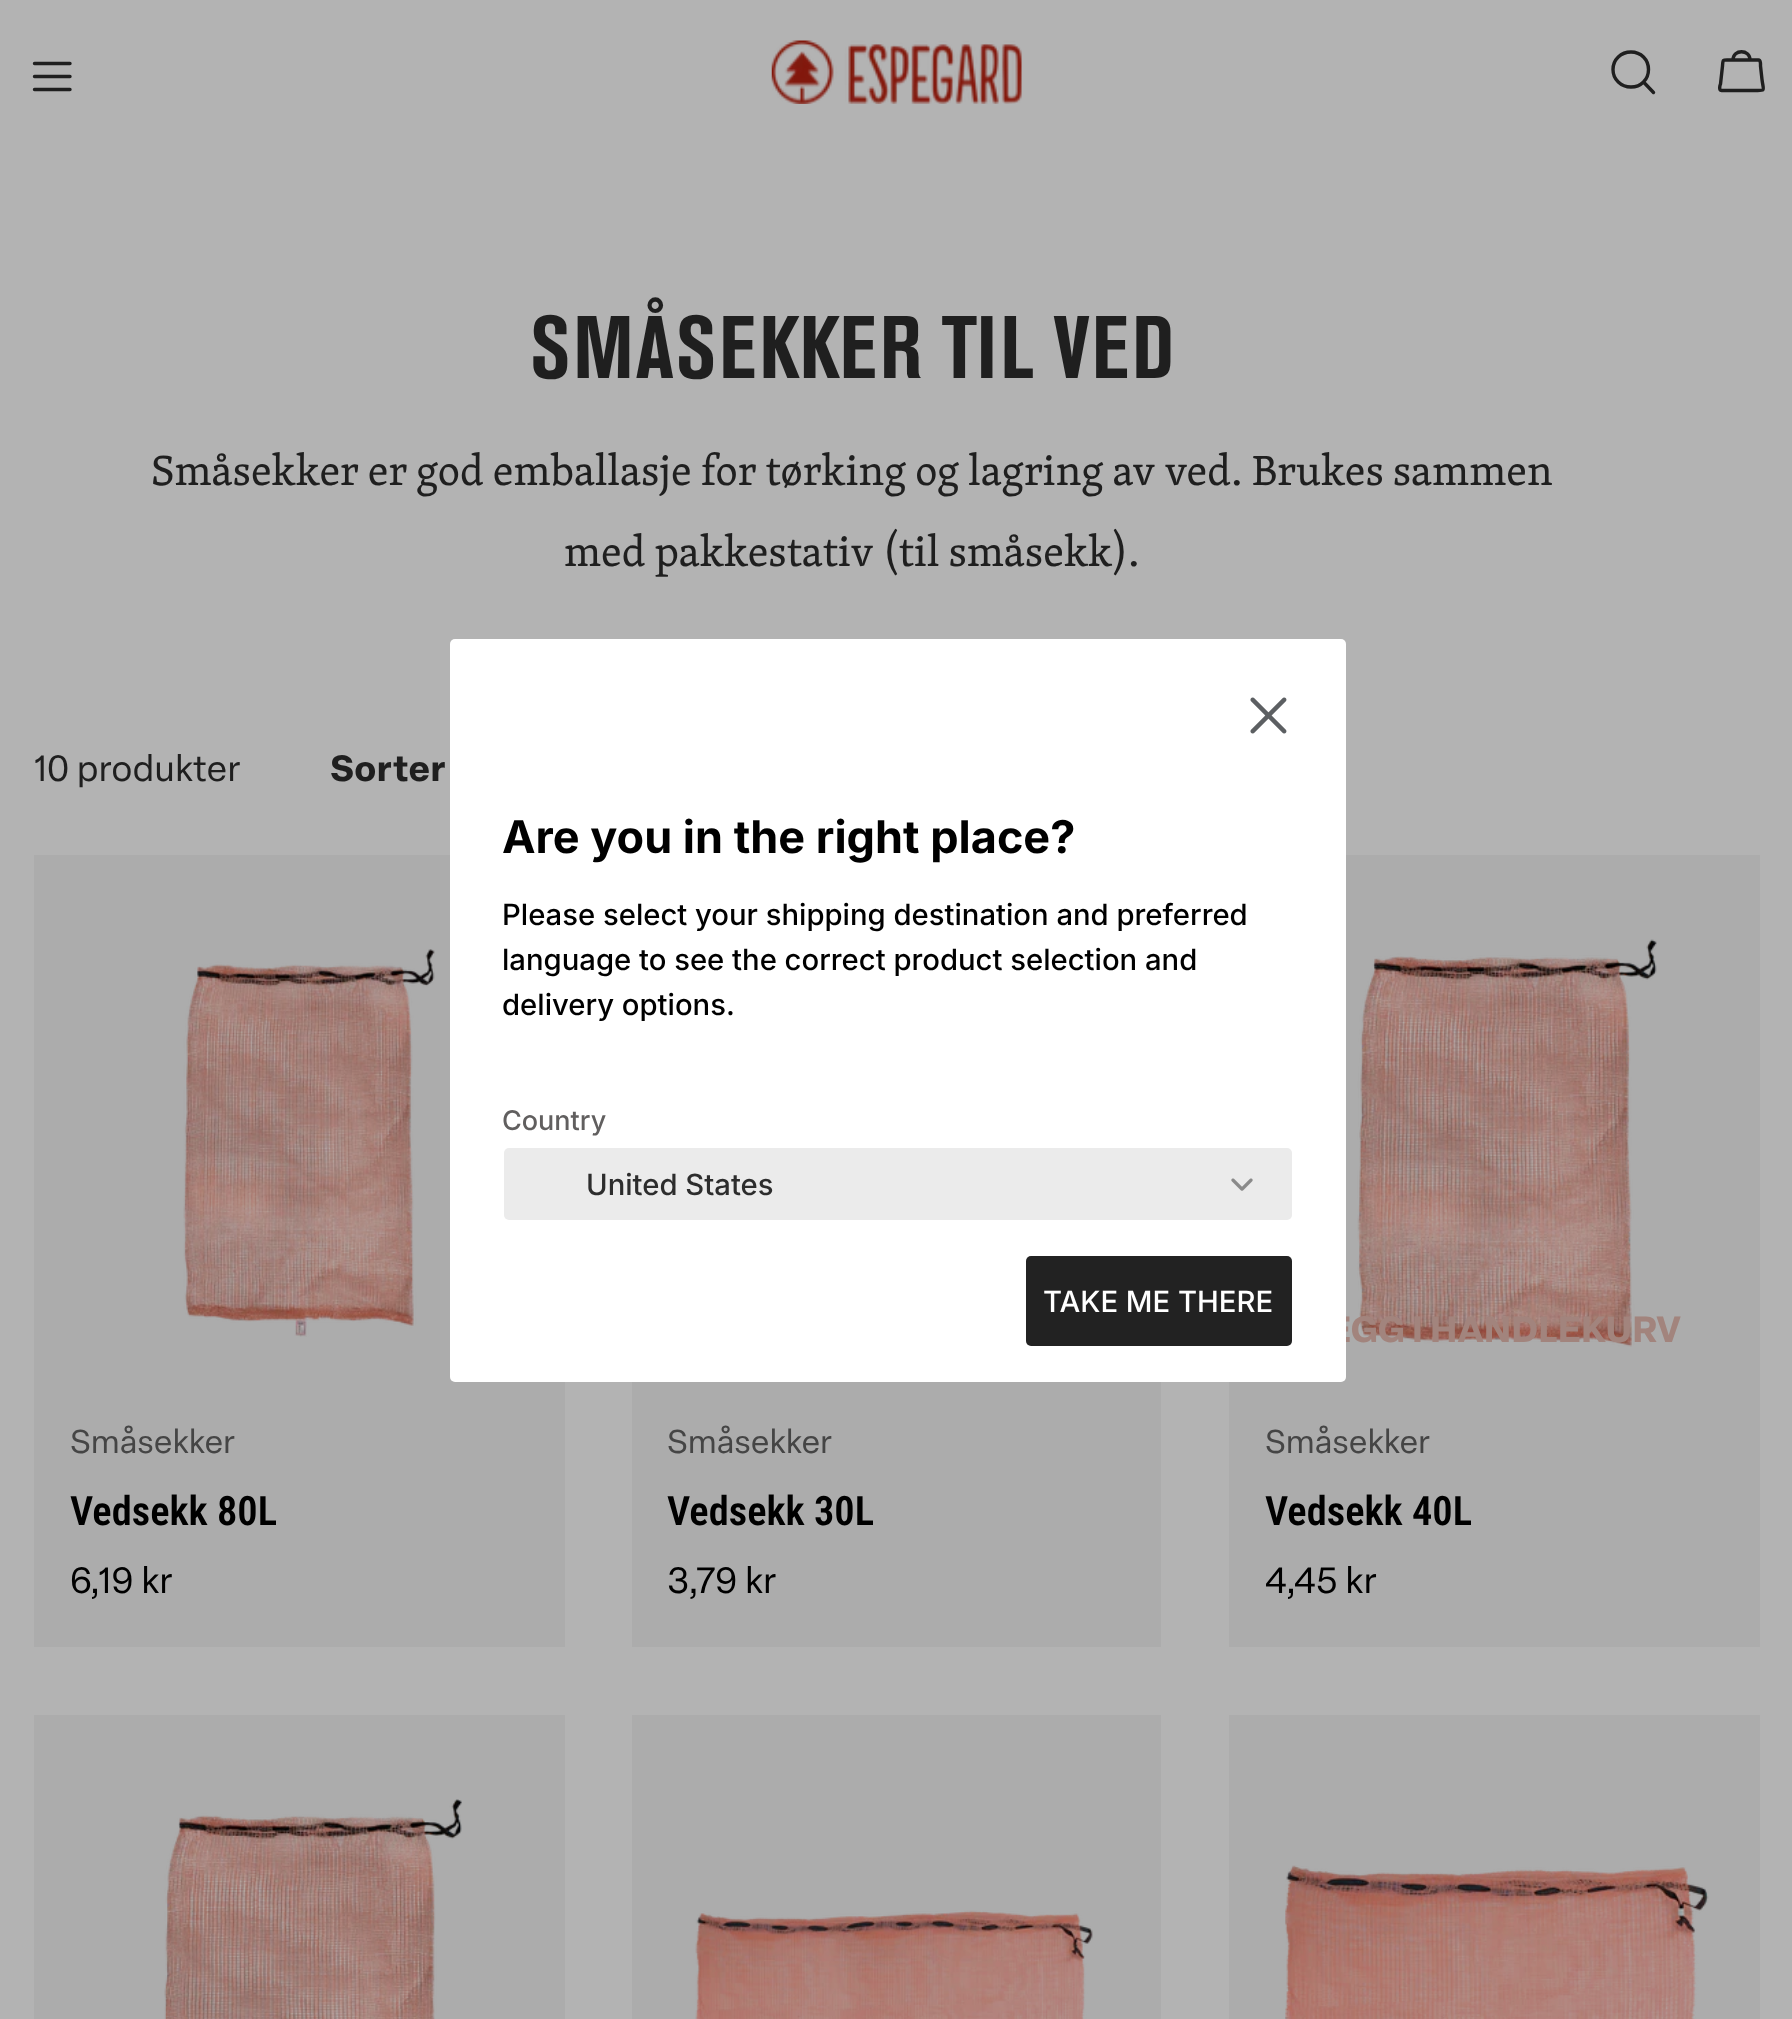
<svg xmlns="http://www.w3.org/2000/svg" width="1792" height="2019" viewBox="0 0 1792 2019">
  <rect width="100%" height="100%" fill="#b3b3b3"/>
  <path d="M34.5 76.5H70M34.5 63.5H70M34.5 89.5H70" fill="none" stroke="#1f1f1f" stroke-width="3.4" stroke-linecap="round" stroke-linejoin="round"/>
  <image x="771" y="40" width="251" height="64" href="img1.png"/>
  <path d="M1631 87C1641 87 1648.5 79.5 1648.5 69.5C1648.5 59.5 1641 52 1631 52C1621 52 1613 59.5 1613 69.5C1613 79.5 1621 87 1631 87ZM1643.5 82L1653.5 92.5" fill="none" stroke="#1f1f1f" stroke-width="3.4" stroke-linecap="round" stroke-linejoin="round"/>
  <path d="M1758.5 60H1730C1722.5 60 1723 59 1722.5 66L1720.5 84C1720 85 1718.5 90.5 1721.5 90.5H1755C1766 90.5 1763.5 91.5 1762 79.5L1760.5 66C1760.5 65.5 1761 60 1758.5 60ZM1733 60C1733 49 1750 49 1750 60" fill="none" stroke="#1f1f1f" stroke-width="3.4" stroke-linecap="round" stroke-linejoin="round"/>
  <text x="530" y="378" font-family="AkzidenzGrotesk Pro" font-size="87.75" font-weight="bold" fill="#1f1f1f">SMÅSEKKER TIL VED</text>
  <text x="151" y="485" font-family="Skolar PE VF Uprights" font-size="43.2" fill="#1f1f1f">Småsekker er god emballasje for tørking og lagring av ved. Brukes sammen</text>
  <text x="564" y="566" font-family="Skolar PE VF Uprights" font-size="43.2" fill="#1f1f1f">med pakkestativ (til småsekk).</text>
  <text x="34" y="781" font-family="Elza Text" font-size="36" fill="#1f1f1f">10 produkter</text>
  <text x="330" y="781" font-family="Elza Text" font-size="36" font-weight="bold" fill="#1f1f1f">Sorter</text>
  <rect x="34" y="855" width="531" height="792" fill="#acacac"/>
  <image x="183" y="949" width="252" height="388" href="img2.png"/>
  <text x="70" y="1453" font-family="Elza Text" font-size="32.5" fill="#454545">Småsekker</text>
  <text x="70" y="1525" font-family="Roboto Condensed" font-size="40.5" font-weight="600" fill="#000000">Vedsekk 80L</text>
  <text x="70" y="1593" font-family="Elza Text" font-size="36" fill="#000000">6,19 kr</text>
  <rect x="632" y="1382" width="529" height="265" fill="#acacac"/>
  <text x="667" y="1453" font-family="Elza Text" font-size="32.5" fill="#454545">Småsekker</text>
  <text x="667" y="1525" font-family="Roboto Condensed" font-size="40.5" font-weight="600" fill="#000000">Vedsekk 30L</text>
  <text x="667" y="1593" font-family="Elza Text" font-size="36" fill="#000000">3,79 kr</text>
  <rect x="1229" y="855" width="531" height="792" fill="#acacac"/>
  <image x="1357" y="939" width="300" height="408" href="img3.png"/>
  <text x="1328" y="1342" font-family="Elza Text" font-size="36" font-weight="bold" fill="#a2847d">EGG I HANDLEKURV</text>
  <text x="1265" y="1453" font-family="Elza Text" font-size="32.5" fill="#454545">Småsekker</text>
  <text x="1265" y="1525" font-family="Roboto Condensed" font-size="40.5" font-weight="600" fill="#000000">Vedsekk 40L</text>
  <text x="1265" y="1593" font-family="Elza Text" font-size="36" fill="#000000">4,45 kr</text>
  <rect x="34" y="1715" width="531" height="304" fill="#acacac"/>
  <image x="164" y="1799" width="298" height="220" href="img4.png"/>
  <rect x="632" y="1715" width="529" height="304" fill="#acacac"/>
  <image x="695" y="1910" width="398" height="109" href="img5.png"/>
  <rect x="1229" y="1715" width="531" height="304" fill="#acacac"/>
  <image x="1285" y="1865" width="424" height="154" href="img6.png"/>
  <rect x="450" y="639" width="896" height="743" rx="5" fill="#ffffff"/>
  <image x="1250" y="697" width="37" height="37" href="img7.png"/>
  <text x="502" y="853" font-family="Inter" font-size="45" font-weight="bold" fill="#000000">Are you in the right place?</text>
  <text x="502" y="925" font-family="Inter" font-size="29.25" font-weight="500" fill="#000000">Please select your shipping destination and preferred</text>
  <text x="502" y="970" font-family="Inter" font-size="29.25" font-weight="500" fill="#000000">language to see the correct product selection and</text>
  <text x="502" y="1015" font-family="Inter" font-size="29.25" font-weight="500" fill="#000000">delivery options.</text>
  <text x="502" y="1130" font-family="Inter" font-size="27" font-weight="500" fill="#615f5f">Country</text>
  <rect x="504" y="1148" width="788" height="72" rx="5" fill="#ebebeb"/>
  <text x="586" y="1195" font-family="Inter" font-size="29.25" font-weight="500" fill="#2d2d2d">United States</text>
  <image x="1231" y="1178" width="22" height="13" href="img8.png"/>
  <rect x="1026" y="1256" width="266" height="90" rx="5" fill="#222222"/>
  <text x="1043" y="1312" font-family="Inter" font-size="29.25" font-weight="500" fill="#ffffff">TAKE ME THERE</text>
</svg>
